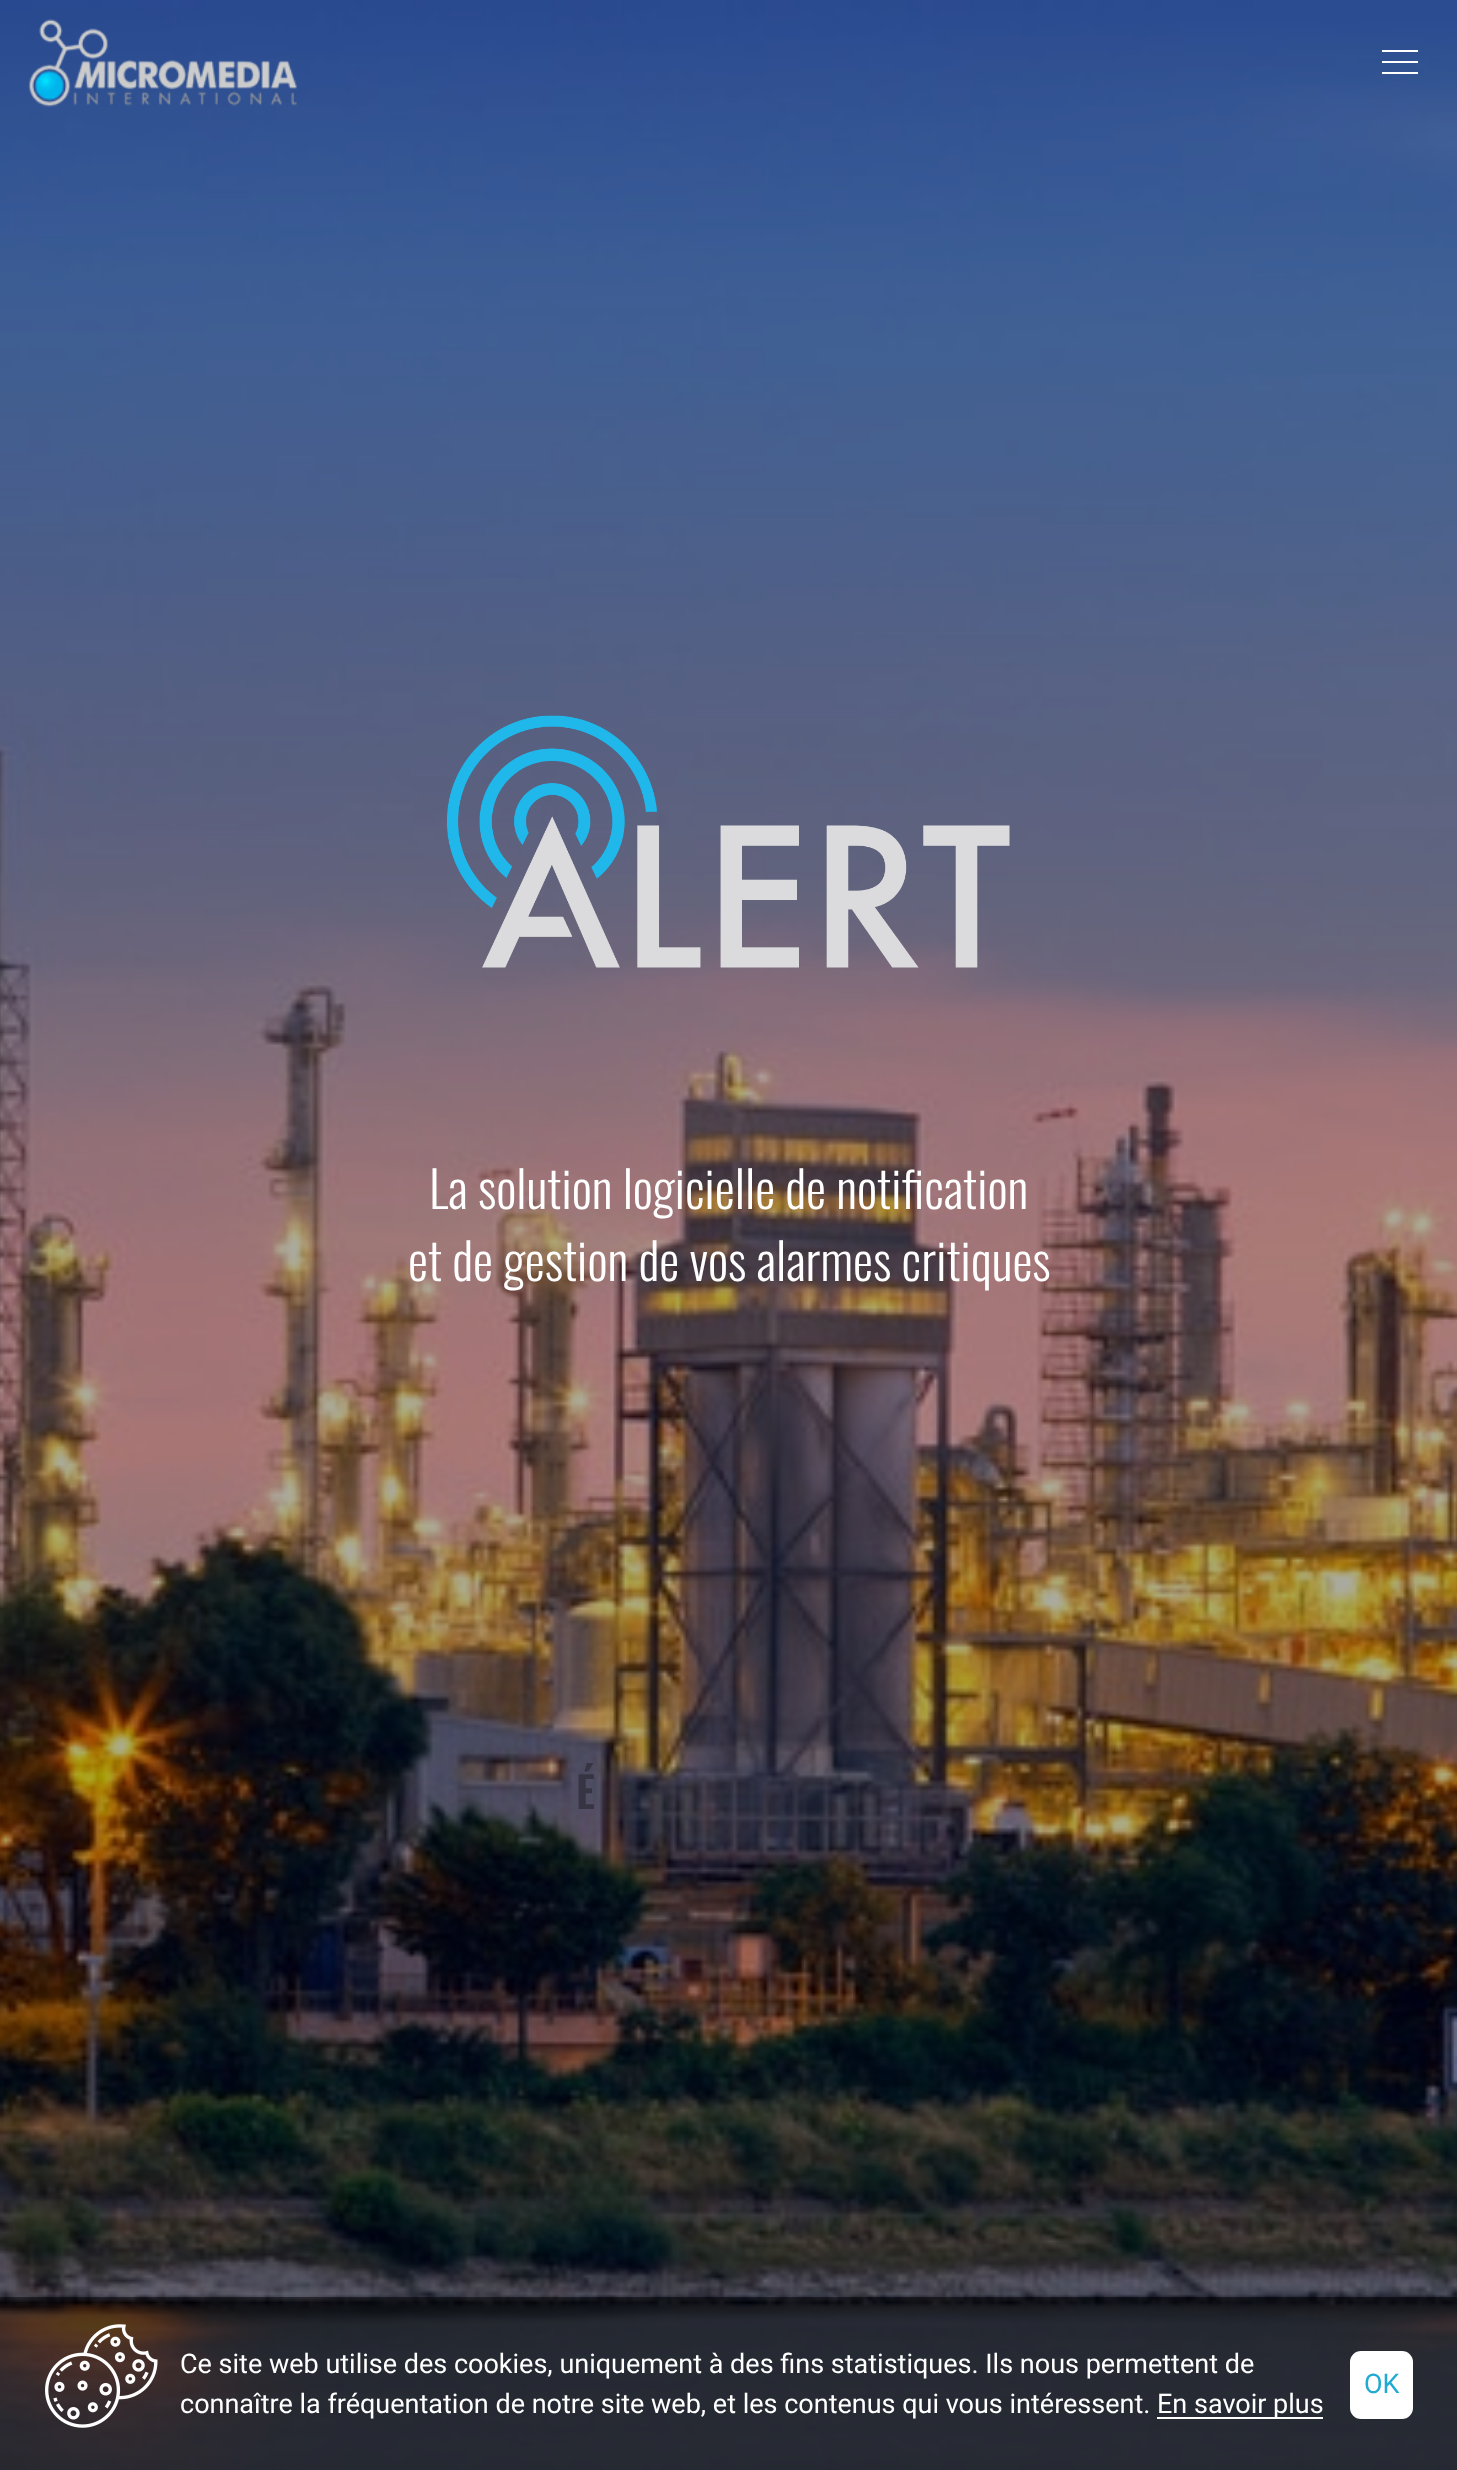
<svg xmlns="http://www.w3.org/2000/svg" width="1457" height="2470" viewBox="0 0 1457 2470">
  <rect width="100%" height="100%" fill="#ffffff"/>
  <image x="0" y="0" width="1457" height="2470" href="img2.png"/>
  <image x="28" y="19" width="269" height="88" href="img1.png"/>
  <rect x="1382" y="50" width="36" height="2" fill="#ffffff"/>
  <rect x="1382" y="61" width="36" height="2" fill="#ffffff"/>
  <rect x="1382" y="72" width="36" height="2" fill="#ffffff"/>
  <image x="447" y="715" width="563" height="253" href="img3.png"/>
  <text x="429" y="1209" font-family="Oswald" font-size="50.4" font-weight="300" fill="#ffffff">La solution logicielle de notification</text>
  <text x="408" y="1281" font-family="Oswald" font-size="50.4" font-weight="300" fill="#ffffff">et de gestion de vos alarmes critiques</text>
  <text x="576" y="1809" font-family="Oswald" font-size="43" font-weight="600" fill="#373544">É</text>
  <rect x="0" y="2297" width="1457" height="173" fill="#000000" fill-opacity="0.5"/>
  <image x="45" y="2324" width="113" height="104" href="img4.png"/>
  <text x="180" y="2373" font-family="Roboto" font-size="27" fill="#ffffff">Ce site web utilise des cookies, uniquement à des fins statistiques. Ils nous permettent de</text>
  <text x="180" y="2413" font-family="Roboto" font-size="27" fill="#ffffff">connaître la fréquentation de notre site web, et les contenus qui vous intéressent.</text>
  <rect x="1157" y="2417" width="166" height="2" fill="#ffffff"/>
  <text x="1157" y="2413" font-family="Roboto" font-size="27" fill="#ffffff">En savoir plus</text>
  <rect x="1351" y="2352" width="61" height="66" rx="10" fill="#ffffff" stroke="#ffffff" stroke-width="2"/>
  <text x="1364" y="2393" font-family="Roboto" font-size="27" fill="#21aad3">OK</text>
</svg>
